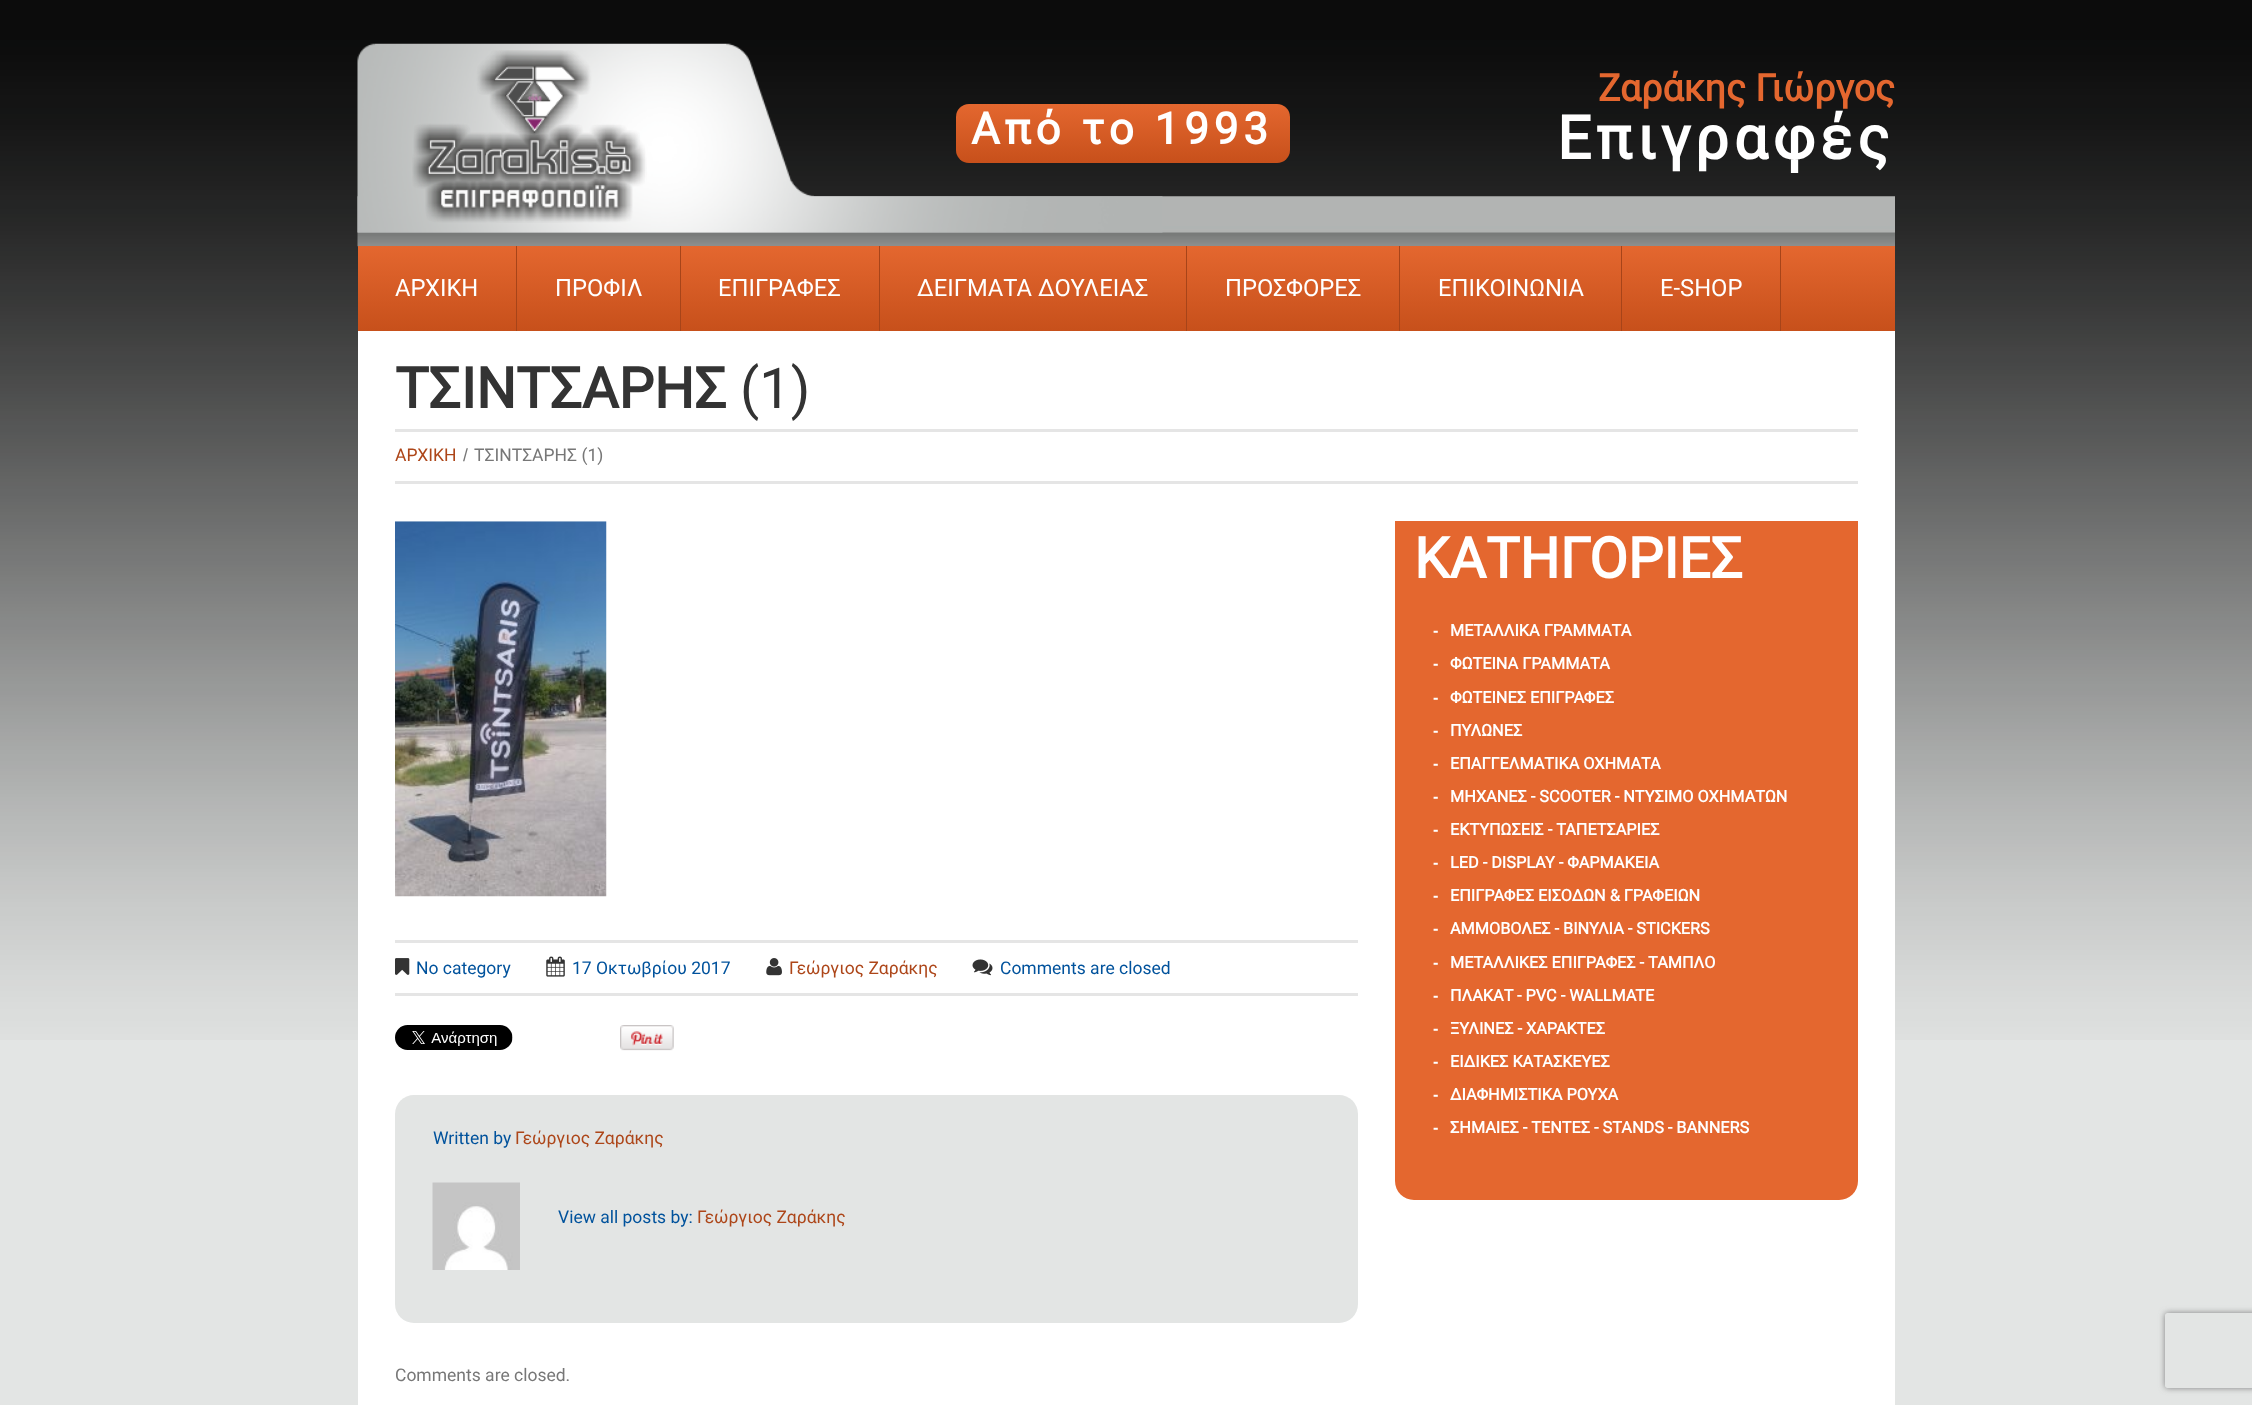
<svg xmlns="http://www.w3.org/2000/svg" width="2252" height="1405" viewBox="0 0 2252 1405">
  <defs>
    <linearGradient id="g1" gradientUnits="userSpaceOnUse" x1="1123" y1="104" x2="1123" y2="163"><stop offset="0" stop-color="#e4672f"/><stop offset="1" stop-color="#c7501b"/></linearGradient>
    <linearGradient id="g2" gradientUnits="userSpaceOnUse" x1="1126" y1="246" x2="1126" y2="331"><stop offset="0" stop-color="#e4672f"/><stop offset="1" stop-color="#c7501b"/></linearGradient>
    <clipPath id="clip1"><path d="M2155 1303H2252V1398H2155ZM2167.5 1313H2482.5C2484 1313 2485 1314 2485 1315.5V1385.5C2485 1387 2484 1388 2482.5 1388H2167.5C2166 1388 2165 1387 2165 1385.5V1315.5C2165 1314 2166 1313 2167.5 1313Z" clip-rule="evenodd"/></clipPath>
    <filter id="blur1" x="-50%" y="-200%" width="200%" height="500%"><feGaussianBlur stdDeviation="3"/></filter>
  </defs>
  <rect width="100%" height="100%" fill="#e3e5e4"/>
  <image x="0" y="0" width="2252" height="1040" href="img1.png"/>
  <image x="357" y="196" width="1538" height="51" href="img2.png"/>
  <rect x="956" y="104" width="334" height="59" rx="13" fill="url(#g1)"/>
  <text x="971" y="144" font-family="Roboto" font-size="43.75" font-weight="bold" letter-spacing="5" fill="#ffffff">Από το 1993</text>
  <image x="357" y="43" width="806" height="190" href="img3.png"/>
  <image x="412" y="50" width="235" height="173" href="img4.png"/>
  <text x="1598" y="101" font-family="Roboto" font-size="37.5" font-weight="bold" fill="#e4672f">Ζαράκης Γιώργος</text>
  <text x="1557" y="159" font-family="Roboto" font-size="60" font-weight="bold" letter-spacing="5" fill="#ffffff">Επιγραφές</text>
  <rect x="358" y="246" width="1537" height="85" fill="url(#g2)"/>
  <rect x="516" y="246" width="1" height="85" fill="#a74419"/>
  <text x="395" y="296" font-family="Roboto" font-size="23.75" fill="#ffffff">ΑΡΧΙΚΗ</text>
  <rect x="680" y="246" width="1" height="85" fill="#a74419"/>
  <text x="555" y="296" font-family="Roboto" font-size="23.75" fill="#ffffff">ΠΡΟΦΙΛ</text>
  <rect x="879" y="246" width="1" height="85" fill="#a74419"/>
  <text x="718" y="296" font-family="Roboto" font-size="23.75" fill="#ffffff">ΕΠΙΓΡΑΦΕΣ</text>
  <rect x="1186" y="246" width="1" height="85" fill="#a74419"/>
  <text x="917" y="296" font-family="Roboto" font-size="23.75" fill="#ffffff">ΔΕΙΓΜΑΤΑ ΔΟΥΛΕΙΑΣ</text>
  <rect x="1399" y="246" width="1" height="85" fill="#a74419"/>
  <text x="1225" y="296" font-family="Roboto" font-size="23.75" fill="#ffffff">ΠΡΟΣΦΟΡΕΣ</text>
  <rect x="1621" y="246" width="1" height="85" fill="#a74419"/>
  <text x="1438" y="296" font-family="Roboto" font-size="23.75" fill="#ffffff">ΕΠΙΚΟΙΝΩΝΙΑ</text>
  <rect x="1780" y="246" width="1" height="85" fill="#a74419"/>
  <text x="1660" y="296" font-family="Roboto" font-size="23.75" fill="#ffffff">E-SHOP</text>
  <rect x="358" y="331" width="1537" height="1074" fill="#ffffff"/>
  <text x="395" y="408" font-family="Roboto" font-size="56.25" font-weight="bold" fill="#333333">ΤΣΙΝΤΣΑΡΗΣ</text>
  <text x="740" y="408" font-family="Roboto" font-size="56.25" fill="#333333">(1)</text>
  <rect x="395" y="429" width="1463" height="3" fill="#e5e5e5"/>
  <rect x="395" y="481" width="1463" height="3" fill="#e5e5e5"/>
  <text x="395" y="461" font-family="Roboto" font-size="17.5" fill="#ad4619">ΑΡΧΙΚΗ</text>
  <text x="463" y="461" font-family="Liberation Sans" font-size="17.5" fill="#777777">/</text>
  <text x="474" y="461" font-family="Roboto" font-size="17.5" fill="#777777">ΤΣΙΝΤΣΑΡΗΣ (1)</text>
  <image x="395" y="521" width="212" height="376" href="img5.png"/>
  <rect x="395" y="940" width="963" height="3" fill="#e5e5e5"/>
  <rect x="395" y="993" width="963" height="3" fill="#e5e5e5"/>
  <image x="395" y="958" width="15" height="17" href="img6.png"/>
  <text x="416" y="974" font-family="Roboto" font-size="17.5" fill="#00529c">No category</text>
  <image x="546" y="956" width="19" height="21" href="img7.png"/>
  <text x="572" y="974" font-family="Roboto" font-size="17.5" fill="#00529c">17 Οκτωβρίου 2017</text>
  <image x="766" y="958" width="16" height="18" href="img8.png"/>
  <text x="789" y="974" font-family="Roboto" font-size="17.5" fill="#ad4619">Γεώργιος Ζαράκης</text>
  <image x="972" y="959" width="21" height="17" href="img9.png"/>
  <text x="1000" y="974" font-family="Roboto" font-size="17.5" fill="#00529c">Comments are closed</text>
  <image x="395" y="1025" width="118" height="25" href="img10.png"/>
  <image x="620" y="1025" width="54" height="26" href="img11.png"/>
  <rect x="395" y="1095" width="963" height="228" rx="19" fill="#e3e5e4"/>
  <text x="433" y="1144" font-family="Roboto" font-size="17.5" fill="#00529c">Written by</text>
  <text x="515" y="1144" font-family="Roboto" font-size="17.5" fill="#ad4619">Γεώργιος Ζαράκης</text>
  <image x="432" y="1182" width="88" height="88" href="img12.png"/>
  <text x="558" y="1223" font-family="Roboto" font-size="17.5" fill="#00529c">View all posts by:</text>
  <text x="697" y="1223" font-family="Roboto" font-size="17.5" fill="#ad4619">Γεώργιος Ζαράκης</text>
  <text x="395" y="1381" font-family="Roboto" font-size="17.5" fill="#777777">Comments are closed.</text>
  <path d="M1395 521H1858V1181C1858 1191.5 1849.5 1200 1839 1200H1414C1403.5 1200 1395 1191.5 1395 1181Z" fill="#e4672f"/>
  <text x="1414" y="578" font-family="Roboto" font-size="56.25" font-weight="bold" fill="#ffffff">ΚΑΤΗΓΟΡΙΕΣ</text>
  <text x="1433" y="636" font-family="Liberation Sans" font-size="16.25" font-weight="bold" fill="#ffffff">-</text>
  <text x="1450" y="636" font-family="Roboto" font-size="16.25" font-weight="bold" fill="#ffffff">ΜΕΤΑΛΛΙΚΑ ΓΡΑΜΜΑΤΑ</text>
  <text x="1433" y="669" font-family="Liberation Sans" font-size="16.25" font-weight="bold" fill="#ffffff">-</text>
  <text x="1450" y="669" font-family="Roboto" font-size="16.25" font-weight="bold" fill="#ffffff">ΦΩΤΕΙΝΑ ΓΡΑΜΜΑΤΑ</text>
  <text x="1433" y="703" font-family="Liberation Sans" font-size="16.25" font-weight="bold" fill="#ffffff">-</text>
  <text x="1450" y="703" font-family="Roboto" font-size="16.25" font-weight="bold" fill="#ffffff">ΦΩΤΕΙΝΕΣ ΕΠΙΓΡΑΦΕΣ</text>
  <text x="1433" y="736" font-family="Liberation Sans" font-size="16.25" font-weight="bold" fill="#ffffff">-</text>
  <text x="1450" y="736" font-family="Roboto" font-size="16.25" font-weight="bold" fill="#ffffff">ΠΥΛΩΝΕΣ</text>
  <text x="1433" y="769" font-family="Liberation Sans" font-size="16.25" font-weight="bold" fill="#ffffff">-</text>
  <text x="1450" y="769" font-family="Roboto" font-size="16.25" font-weight="bold" fill="#ffffff">ΕΠΑΓΓΕΛΜΑΤΙΚΑ ΟΧΗΜΑΤΑ</text>
  <text x="1433" y="802" font-family="Liberation Sans" font-size="16.25" font-weight="bold" fill="#ffffff">-</text>
  <text x="1450" y="802" font-family="Roboto" font-size="16.25" font-weight="bold" fill="#ffffff">ΜΗΧΑΝΕΣ - SCOOTER - ΝΤΥΣΙΜΟ ΟΧΗΜΑΤΩΝ</text>
  <text x="1433" y="835" font-family="Liberation Sans" font-size="16.25" font-weight="bold" fill="#ffffff">-</text>
  <text x="1450" y="835" font-family="Roboto" font-size="16.25" font-weight="bold" fill="#ffffff">ΕΚΤΥΠΩΣΕΙΣ - ΤΑΠΕΤΣΑΡΙΕΣ</text>
  <text x="1433" y="868" font-family="Liberation Sans" font-size="16.25" font-weight="bold" fill="#ffffff">-</text>
  <text x="1450" y="868" font-family="Roboto" font-size="16.25" font-weight="bold" fill="#ffffff">LED - DISPLAY - ΦΑΡΜΑΚΕΙΑ</text>
  <text x="1433" y="901" font-family="Liberation Sans" font-size="16.25" font-weight="bold" fill="#ffffff">-</text>
  <text x="1450" y="901" font-family="Roboto" font-size="16.25" font-weight="bold" fill="#ffffff">ΕΠΙΓΡΑΦΕΣ ΕΙΣΟΔΩΝ &amp; ΓΡΑΦΕΙΩΝ</text>
  <text x="1433" y="934" font-family="Liberation Sans" font-size="16.25" font-weight="bold" fill="#ffffff">-</text>
  <text x="1450" y="934" font-family="Roboto" font-size="16.25" font-weight="bold" fill="#ffffff">ΑΜΜΟΒΟΛΕΣ - ΒΙΝΥΛΙΑ - STICKERS</text>
  <text x="1433" y="968" font-family="Liberation Sans" font-size="16.25" font-weight="bold" fill="#ffffff">-</text>
  <text x="1450" y="968" font-family="Roboto" font-size="16.25" font-weight="bold" fill="#ffffff">ΜΕΤΑΛΛΙΚΕΣ ΕΠΙΓΡΑΦΕΣ - ΤΑΜΠΛΟ</text>
  <text x="1433" y="1001" font-family="Liberation Sans" font-size="16.25" font-weight="bold" fill="#ffffff">-</text>
  <text x="1450" y="1001" font-family="Roboto" font-size="16.25" font-weight="bold" fill="#ffffff">ΠΛΑΚΑΤ - PVC - WALLMATE</text>
  <text x="1433" y="1034" font-family="Liberation Sans" font-size="16.25" font-weight="bold" fill="#ffffff">-</text>
  <text x="1450" y="1034" font-family="Roboto" font-size="16.25" font-weight="bold" fill="#ffffff">ΞΥΛΙΝΕΣ - ΧΑΡΑΚΤΕΣ</text>
  <text x="1433" y="1067" font-family="Liberation Sans" font-size="16.25" font-weight="bold" fill="#ffffff">-</text>
  <text x="1450" y="1067" font-family="Roboto" font-size="16.25" font-weight="bold" fill="#ffffff">ΕΙΔΙΚΕΣ ΚΑΤΑΣΚΕΥΕΣ</text>
  <text x="1433" y="1100" font-family="Liberation Sans" font-size="16.25" font-weight="bold" fill="#ffffff">-</text>
  <text x="1450" y="1100" font-family="Roboto" font-size="16.25" font-weight="bold" fill="#ffffff">ΔΙΑΦΗΜΙΣΤΙΚΑ ΡΟΥΧΑ</text>
  <text x="1433" y="1133" font-family="Liberation Sans" font-size="16.25" font-weight="bold" fill="#ffffff">-</text>
  <text x="1450" y="1133" font-family="Roboto" font-size="16.25" font-weight="bold" fill="#ffffff">ΣΗΜΑΙΕΣ - ΤΕΝΤΕΣ - STANDS - BANNERS</text>
  <g clip-path="url(#clip1)">
    <rect x="2165" y="1313" width="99" height="75" rx="2.5" fill="#808080" filter="url(#blur1)"/>
  </g>
</svg>
